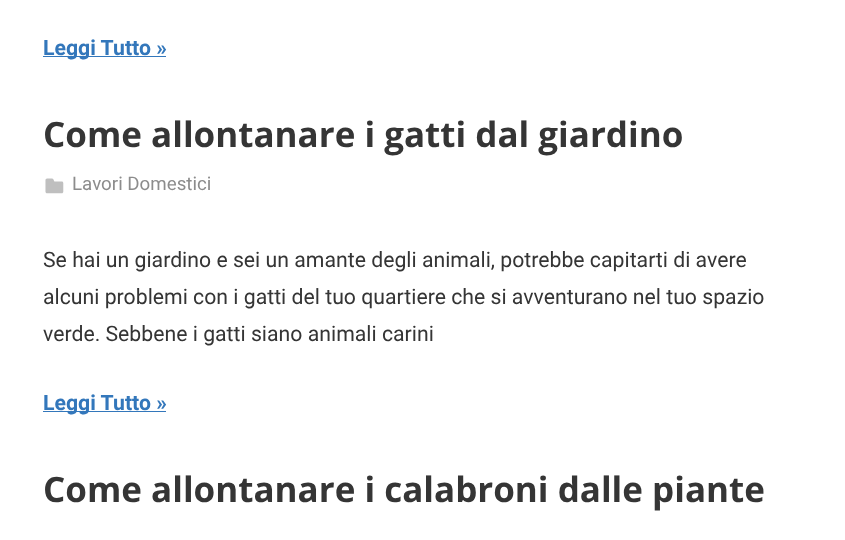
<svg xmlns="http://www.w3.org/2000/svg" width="845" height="540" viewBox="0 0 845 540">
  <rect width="100%" height="100%" fill="#ffffff"/>
  <rect x="43" y="56" width="123" height="1" fill="#3377bb"/>
  <text x="43" y="55" font-family="Roboto" font-size="21.25" font-weight="bold" fill="#3377bb">Leggi Tutto »</text>
  <text x="43" y="147" font-family="Open Sans" font-size="35" font-weight="bold" fill="#353535">Come allontanare i gatti dal giardino</text>
  <image x="45" y="178" width="19" height="16" href="img1.png"/>
  <text x="72" y="190" font-family="Roboto" font-size="18.75" fill="#8c8c8c">Lavori Domestici</text>
  <text x="43" y="267" font-family="Roboto" font-size="21.25" fill="#353535">Se hai un giardino e sei un amante degli animali, potrebbe capitarti di avere</text>
  <text x="43" y="304" font-family="Roboto" font-size="21.25" fill="#353535">alcuni problemi con i gatti del tuo quartiere che si avventurano nel tuo spazio</text>
  <text x="43" y="341" font-family="Roboto" font-size="21.25" fill="#353535">verde. Sebbene i gatti siano animali carini</text>
  <rect x="43" y="411" width="123" height="1" fill="#3377bb"/>
  <text x="43" y="410" font-family="Roboto" font-size="21.25" font-weight="bold" fill="#3377bb">Leggi Tutto »</text>
  <text x="43" y="502" font-family="Open Sans" font-size="35" font-weight="bold" fill="#353535">Come allontanare i calabroni dalle piante</text>
</svg>
